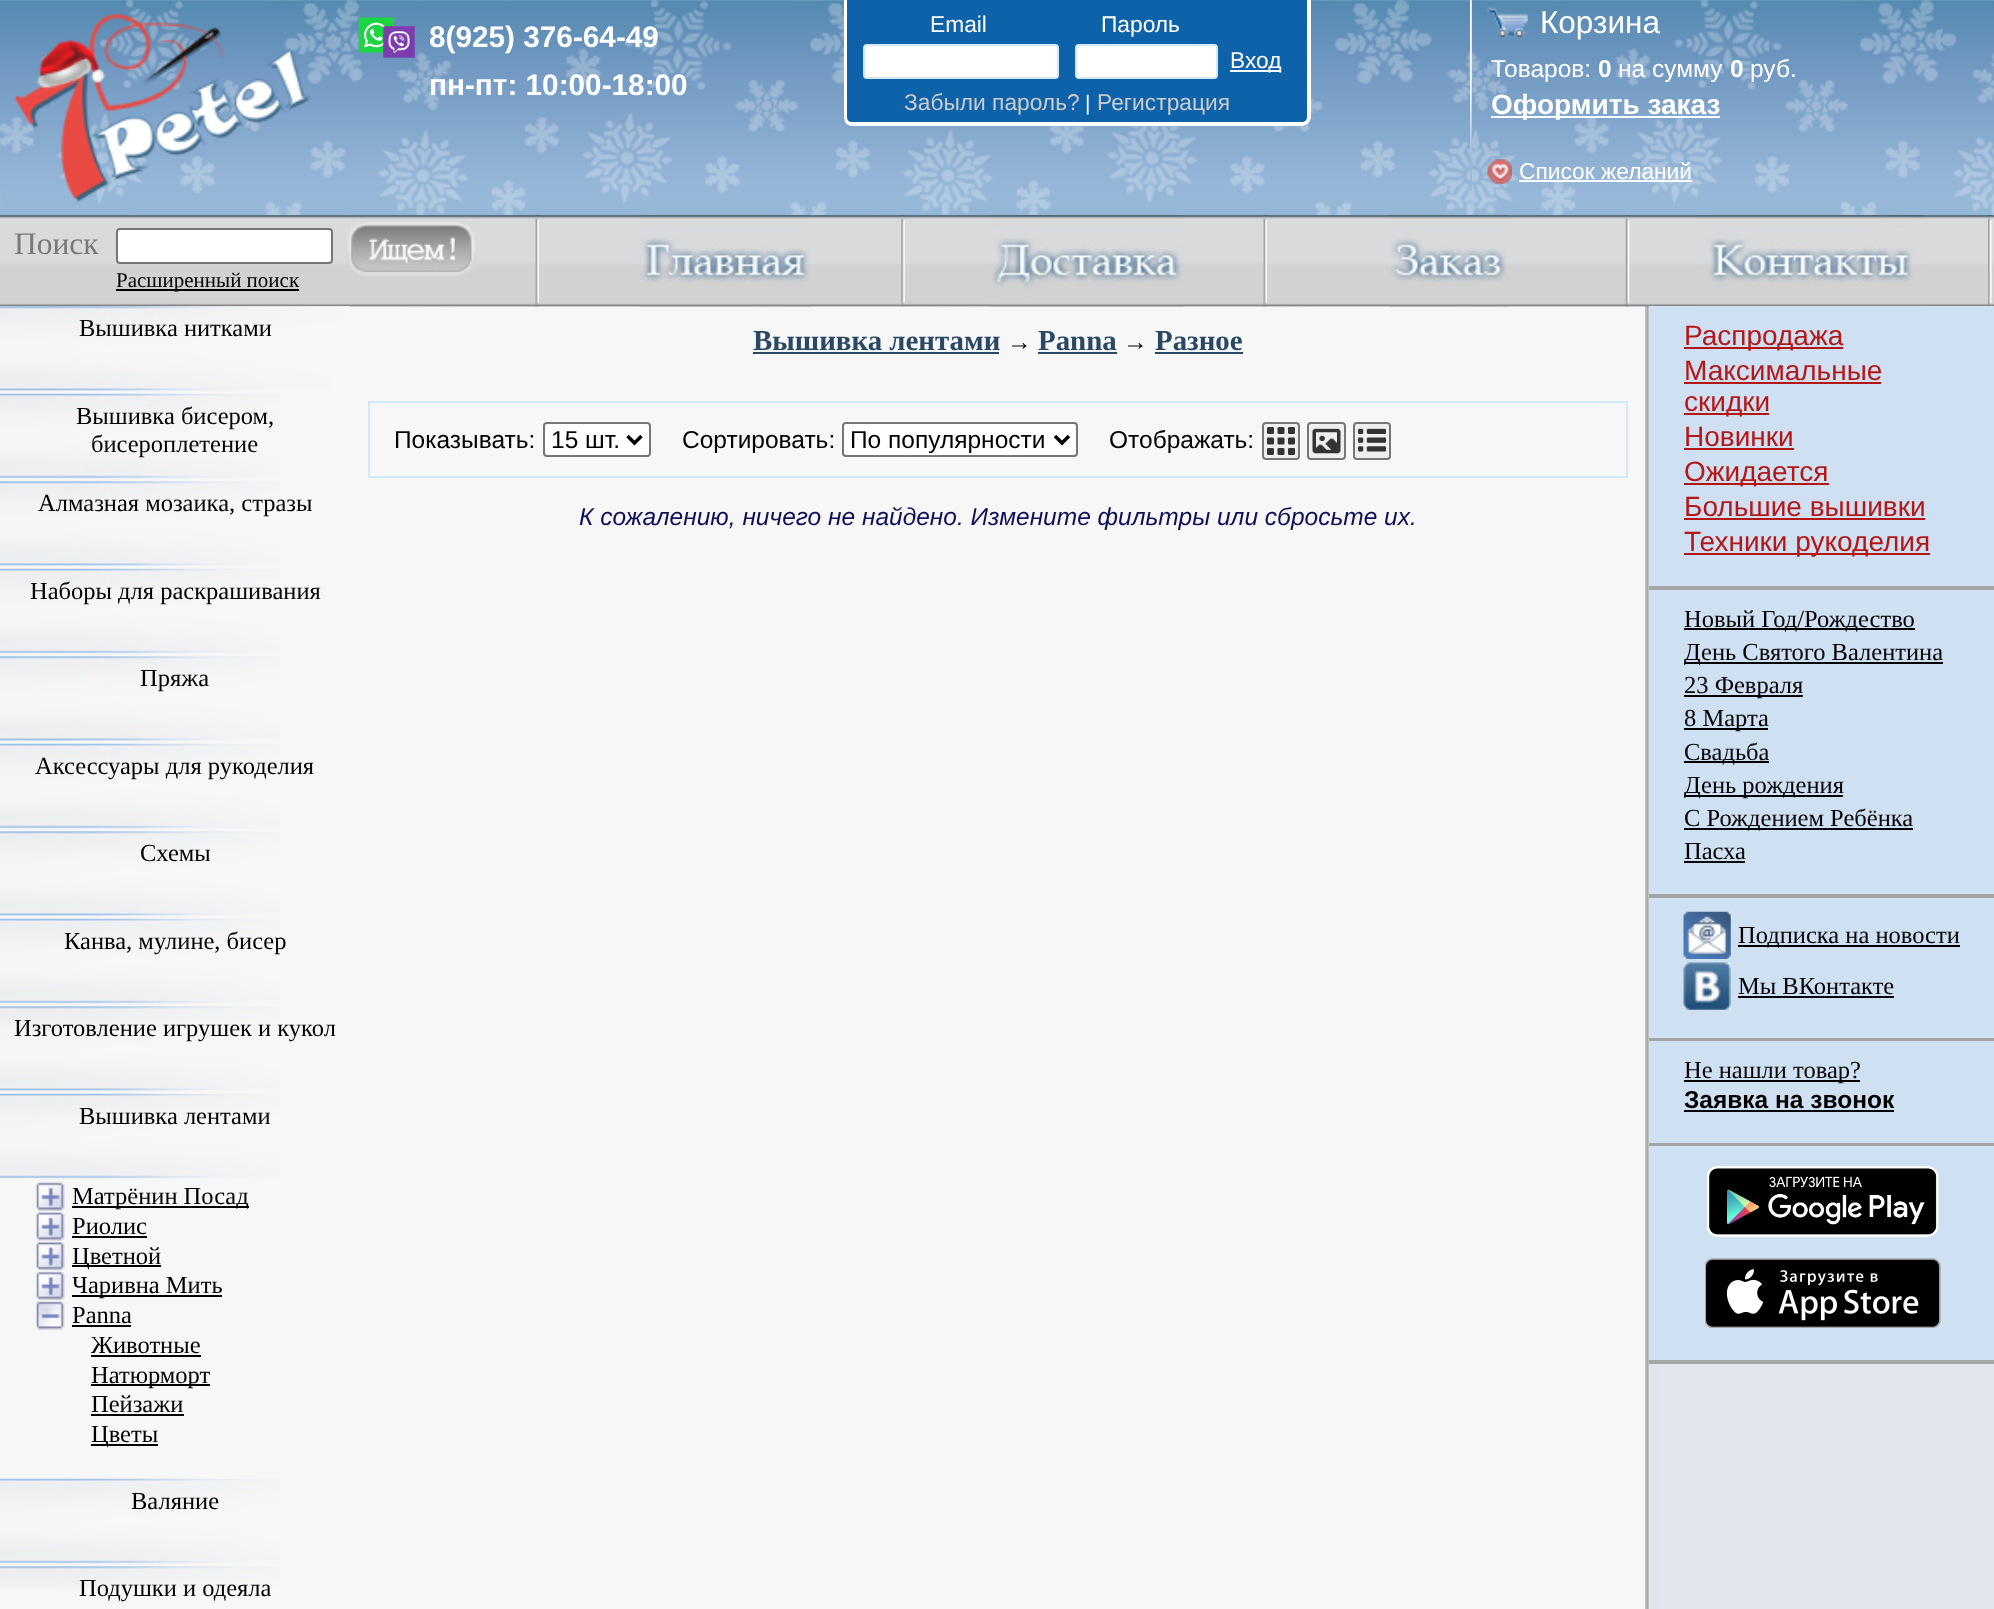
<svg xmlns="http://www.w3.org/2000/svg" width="1994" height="1609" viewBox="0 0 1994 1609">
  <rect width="100%" height="100%" fill="#f7f7f7"/>
  <image x="1645" y="306" width="349" height="1303" href="img1.png"/>
  <image x="0" y="0" width="1994" height="307" href="img2.png"/>
  <image x="358" y="17" width="36" height="36" href="img3.png"/>
  <image x="383" y="26" width="32" height="32" href="img4.png"/>
  <text x="429" y="47" font-family="Liberation Sans" font-size="29.75" font-weight="bold" fill="#ffffff">8(925) 376-64-49</text>
  <text x="429" y="95" font-family="Liberation Sans" font-size="29.75" font-weight="bold" fill="#ffffff">пн-пт: 10:00-18:00</text>
  <image x="14" y="14" width="297" height="188" href="img5.png"/>
  <path d="M844 0H1311V117C1311 122 1307 126 1302 126H853C848 126 844 122 844 117Z" fill="#0e62aa"/>
  <path d="M844 0H1311V117C1311 122 1307 126 1302 126H852C847 126 844 122 844 117ZM847 0H1307V117C1307 120 1305 122 1302 122H852C849 122 847 120 847 117Z" fill="#ffffff" fill-rule="evenodd"/>
  <text x="930" y="32" font-family="Liberation Sans" font-size="22.75" fill="#ffffff">Email</text>
  <text x="1101" y="32" font-family="Liberation Sans" font-size="22.75" fill="#ffffff">Пароль</text>
  <rect x="864" y="45" width="194" height="33" rx="3" fill="#ffffff" stroke="#d3e9f5" stroke-width="2"/>
  <rect x="1076" y="45" width="141" height="33" rx="3" fill="#ffffff" stroke="#d3e9f5" stroke-width="2"/>
  <rect x="1230" y="70" width="51" height="2" fill="#ffffff"/>
  <text x="1230" y="68" font-family="Liberation Sans" font-size="22.75" fill="#ffffff">Вход</text>
  <text x="904" y="110" font-family="Liberation Sans" font-size="22.75" fill="#cccccc">Забыли пароль?</text>
  <text x="1085" y="110" font-family="Liberation Sans" font-size="21" fill="#ffffff">|</text>
  <text x="1097" y="110" font-family="Liberation Sans" font-size="22.75" fill="#cccccc">Регистрация</text>
  <image x="1470" y="0" width="2" height="191" href="img6.png"/>
  <image x="1487" y="6" width="41" height="31" href="img7.png"/>
  <text x="1540" y="33" font-family="Liberation Sans" font-size="31.5" fill="#ffffff">Корзина</text>
  <text x="1491" y="77" font-family="Liberation Sans" font-size="24.5" fill="#ffffff">Товаров:</text>
  <text x="1598" y="77" font-family="Liberation Sans" font-size="24.5" font-weight="bold" fill="#ffffff">0</text>
  <text x="1618" y="77" font-family="Liberation Sans" font-size="24.5" fill="#ffffff">на сумму</text>
  <text x="1730" y="77" font-family="Liberation Sans" font-size="24.5" font-weight="bold" fill="#ffffff">0</text>
  <text x="1750" y="77" font-family="Liberation Sans" font-size="24.5" fill="#ffffff">руб.</text>
  <rect x="1491" y="116" width="229" height="2" fill="#ffffff"/>
  <text x="1491" y="114" font-family="Liberation Sans" font-size="28" font-weight="bold" fill="#ffffff">Оформить заказ</text>
  <image x="1487" y="159" width="25" height="25" href="img8.png"/>
  <text x="1519" y="179" font-family="Liberation Sans" font-size="22.75" fill="#ffffff">Список желаний</text>
  <rect x="1519" y="180" width="173" height="2" fill="#ffffff"/>
  <image x="0" y="215" width="1994" height="92" href="img9.png"/>
  <image x="535" y="215" width="4" height="92" href="img10.png"/>
  <text x="14" y="254" font-family="Liberation Serif" font-size="31.5" fill="#797979">Поиск</text>
  <rect x="117" y="229" width="215" height="34" rx="3" fill="#ffffff" stroke="#767676" stroke-width="2"/>
  <image x="346" y="221" width="130" height="55" href="img11.png"/>
  <rect x="116" y="289" width="183" height="2" fill="#000000"/>
  <text x="116" y="287" font-family="Liberation Serif" font-size="21" fill="#000000">Расширенный поиск</text>
  <image x="901" y="215" width="4" height="92" href="img12.png"/>
  <image x="638" y="215" width="173" height="92" href="img13.png"/>
  <image x="1263" y="215" width="4" height="92" href="img10.png"/>
  <image x="990" y="215" width="193" height="92" href="img14.png"/>
  <image x="1625" y="215" width="5" height="92" href="img15.png"/>
  <image x="1389" y="215" width="120" height="92" href="img16.png"/>
  <image x="1988" y="215" width="4" height="91" href="img17.png"/>
  <image x="1697" y="215" width="228" height="91" href="img18.png"/>
  <image x="0" y="306" width="350" height="85" href="img19.png"/>
  <text x="79" y="336" font-family="Liberation Serif" font-size="24.5" fill="#000000">Вышивка нитками</text>
  <image x="0" y="393" width="280" height="86" href="img20.png"/>
  <text x="76" y="424" font-family="Liberation Serif" font-size="24.5" fill="#000000">Вышивка бисером,</text>
  <text x="91" y="452" font-family="Liberation Serif" font-size="24.5" fill="#000000">бисероплетение</text>
  <image x="0" y="481" width="280" height="85" href="img21.png"/>
  <text x="38" y="511" font-family="Liberation Serif" font-size="24.5" fill="#000000">Алмазная мозаика, стразы</text>
  <image x="0" y="568" width="280" height="86" href="img20.png"/>
  <text x="30" y="599" font-family="Liberation Serif" font-size="24.5" fill="#000000">Наборы для раскрашивания</text>
  <image x="0" y="656" width="280" height="85" href="img21.png"/>
  <text x="140" y="686" font-family="Liberation Serif" font-size="24.5" fill="#000000">Пряжа</text>
  <image x="0" y="743" width="280" height="86" href="img20.png"/>
  <text x="35" y="774" font-family="Liberation Serif" font-size="24.5" fill="#000000">Аксессуары для рукоделия</text>
  <image x="0" y="831" width="280" height="85" href="img21.png"/>
  <text x="140" y="861" font-family="Liberation Serif" font-size="24.5" fill="#000000">Схемы</text>
  <image x="0" y="918" width="280" height="86" href="img20.png"/>
  <text x="64" y="949" font-family="Liberation Serif" font-size="24.5" fill="#000000">Канва, мулине, бисер</text>
  <image x="0" y="1006" width="280" height="85" href="img21.png"/>
  <text x="14" y="1036" font-family="Liberation Serif" font-size="24.5" fill="#000000">Изготовление игрушек и кукол</text>
  <image x="0" y="1093" width="280" height="86" href="img20.png"/>
  <text x="79" y="1124" font-family="Liberation Serif" font-size="24.5" fill="#000000">Вышивка лентами</text>
  <image x="36" y="1182" width="29" height="29" href="img22.png"/>
  <rect x="72" y="1206" width="177" height="2" fill="#000000"/>
  <text x="72" y="1204" font-family="Liberation Serif" font-size="24.5" fill="#000000">Матрёнин Посад</text>
  <image x="36" y="1212" width="29" height="29" href="img23.png"/>
  <text x="72" y="1234" font-family="Liberation Serif" font-size="24.5" fill="#000000">Риолис</text>
  <rect x="72" y="1236" width="75" height="2" fill="#000000"/>
  <image x="36" y="1240" width="29" height="31" href="img24.png"/>
  <rect x="72" y="1265" width="89" height="2" fill="#000000"/>
  <text x="72" y="1264" font-family="Liberation Serif" font-size="24.5" fill="#000000">Цветной</text>
  <image x="36" y="1270" width="29" height="31" href="img25.png"/>
  <rect x="72" y="1295" width="150" height="2" fill="#000000"/>
  <text x="72" y="1293" font-family="Liberation Serif" font-size="24.5" fill="#000000">Чаривна Мить</text>
  <image x="36" y="1300" width="29" height="30" href="img26.png"/>
  <text x="72" y="1323" font-family="Liberation Serif" font-size="24.5" fill="#000000">Panna</text>
  <rect x="72" y="1325" width="59" height="2" fill="#000000"/>
  <text x="91" y="1353" font-family="Liberation Serif" font-size="24.5" fill="#000000">Животные</text>
  <rect x="91" y="1355" width="110" height="2" fill="#000000"/>
  <rect x="91" y="1384" width="119" height="2" fill="#000000"/>
  <text x="91" y="1383" font-family="Liberation Serif" font-size="24.5" fill="#000000">Натюрморт</text>
  <text x="91" y="1412" font-family="Liberation Serif" font-size="24.5" fill="#000000">Пейзажи</text>
  <rect x="91" y="1414" width="93" height="2" fill="#000000"/>
  <rect x="91" y="1444" width="67" height="2" fill="#000000"/>
  <text x="91" y="1442" font-family="Liberation Serif" font-size="24.5" fill="#000000">Цветы</text>
  <image x="0" y="1478" width="280" height="86" href="img20.png"/>
  <text x="131" y="1509" font-family="Liberation Serif" font-size="24.5" fill="#000000">Валяние</text>
  <image x="0" y="1566" width="280" height="22" href="img27.png"/>
  <text x="79" y="1596" font-family="Liberation Serif" font-size="24.5" fill="#000000">Подушки и одеяла</text>
  <text x="753" y="350" font-family="Liberation Serif" font-size="28.9" font-weight="bold" fill="#2a4764">Вышивка лентами</text>
  <rect x="753" y="352" width="246" height="2" fill="#2a4764"/>
  <text x="1007" y="350" font-family="Liberation Sans" font-size="24.5" fill="#000000">→</text>
  <text x="1038" y="350" font-family="Liberation Serif" font-size="28.9" font-weight="bold" fill="#2a4764">Panna</text>
  <rect x="1038" y="352" width="79" height="2" fill="#2a4764"/>
  <text x="1123" y="350" font-family="Liberation Sans" font-size="24.5" fill="#000000">→</text>
  <text x="1155" y="350" font-family="Liberation Serif" font-size="28.9" font-weight="bold" fill="#2a4764">Разное</text>
  <rect x="1155" y="352" width="88" height="2" fill="#2a4764"/>
  <rect x="369" y="402" width="1258" height="75" fill="none" stroke="#d3e9f5" stroke-width="2"/>
  <text x="394" y="448" font-family="Liberation Sans" font-size="24.5" fill="#000000">Показывать:</text>
  <rect x="544" y="423" width="106" height="33" rx="3" fill="#ffffff" stroke="#767676" stroke-width="2"/>
  <path d="M627.5 436L634.5 443L641.5 436" fill="none" stroke="#000000" stroke-width="3.5"/>
  <text x="551" y="448" font-family="Liberation Sans" font-size="24.5" fill="#000000">15 шт.</text>
  <text x="682" y="448" font-family="Liberation Sans" font-size="24.5" fill="#000000">Сортировать:</text>
  <rect x="843" y="423" width="234" height="33" rx="3" fill="#ffffff" stroke="#767676" stroke-width="2"/>
  <path d="M1055 436L1062 443L1069 436" fill="none" stroke="#000000" stroke-width="3.5"/>
  <text x="850" y="448" font-family="Liberation Sans" font-size="24.5" fill="#000000">По популярности</text>
  <text x="1109" y="448" font-family="Liberation Sans" font-size="24.5" fill="#000000">Отображать:</text>
  <rect x="1263" y="423" width="36" height="36" rx="3" fill="#efefef" stroke="#767676" stroke-width="2"/>
  <image x="1266" y="427" width="29" height="28" href="img28.png"/>
  <rect x="1308" y="423" width="37" height="36" rx="3" fill="#efefef" stroke="#767676" stroke-width="2"/>
  <image x="1312" y="428" width="29" height="26" href="img29.png"/>
  <rect x="1354" y="423" width="36" height="36" rx="3" fill="#efefef" stroke="#767676" stroke-width="2"/>
  <image x="1357" y="428" width="29" height="24" href="img30.png"/>
  <text x="579" y="525" font-family="Liberation Sans" font-size="24.5" font-style="italic" fill="#101059">К сожалению, ничего не найдено. Измените фильтры или сбросьте их.</text>
  <rect x="1649" y="306" width="345" height="280" fill="#cee0f1"/>
  <rect x="1649" y="586" width="345" height="4" fill="#a5a5a5"/>
  <rect x="1684" y="347" width="159" height="2" fill="#b51717"/>
  <text x="1684" y="345" font-family="Liberation Sans" font-size="28" fill="#b51717">Распродажа</text>
  <text x="1684" y="380" font-family="Liberation Sans" font-size="28" fill="#b51717">Максимальные</text>
  <rect x="1684" y="382" width="197" height="2" fill="#b51717"/>
  <rect x="1684" y="413" width="85" height="2" fill="#b51717"/>
  <text x="1684" y="411" font-family="Liberation Sans" font-size="28" fill="#b51717">скидки</text>
  <text x="1684" y="446" font-family="Liberation Sans" font-size="28" fill="#b51717">Новинки</text>
  <rect x="1684" y="448" width="110" height="2" fill="#b51717"/>
  <rect x="1684" y="483" width="145" height="2" fill="#b51717"/>
  <text x="1684" y="481" font-family="Liberation Sans" font-size="28" fill="#b51717">Ожидается</text>
  <text x="1684" y="516" font-family="Liberation Sans" font-size="28" fill="#b51717">Большие вышивки</text>
  <rect x="1684" y="518" width="241" height="2" fill="#b51717"/>
  <rect x="1684" y="553" width="246" height="2" fill="#b51717"/>
  <text x="1684" y="551" font-family="Liberation Sans" font-size="28" fill="#b51717">Техники рукоделия</text>
  <rect x="1649" y="590" width="345" height="304" fill="#cee0f1"/>
  <rect x="1649" y="894" width="345" height="4" fill="#a5a5a5"/>
  <rect x="1684" y="628" width="231" height="2" fill="#000000"/>
  <text x="1684" y="627" font-family="Liberation Serif" font-size="24.5" fill="#000000">Новый Год/Рождество</text>
  <rect x="1684" y="662" width="259" height="2" fill="#000000"/>
  <text x="1684" y="660" font-family="Liberation Serif" font-size="24.5" fill="#000000">День Святого Валентина</text>
  <rect x="1684" y="695" width="119" height="2" fill="#000000"/>
  <text x="1684" y="693" font-family="Liberation Serif" font-size="24.5" fill="#000000">23 Февраля</text>
  <rect x="1684" y="728" width="84" height="2" fill="#000000"/>
  <text x="1684" y="726" font-family="Liberation Serif" font-size="24.5" fill="#000000">8 Марта</text>
  <rect x="1684" y="761" width="85" height="2" fill="#000000"/>
  <text x="1684" y="760" font-family="Liberation Serif" font-size="24.5" fill="#000000">Свадьба</text>
  <rect x="1684" y="795" width="159" height="2" fill="#000000"/>
  <text x="1684" y="793" font-family="Liberation Serif" font-size="24.5" fill="#000000">День рождения</text>
  <rect x="1684" y="828" width="229" height="2" fill="#000000"/>
  <text x="1684" y="826" font-family="Liberation Serif" font-size="24.5" fill="#000000">С Рождением Ребёнка</text>
  <text x="1684" y="859" font-family="Liberation Serif" font-size="24.5" fill="#000000">Пасха</text>
  <rect x="1684" y="861" width="61" height="2" fill="#000000"/>
  <rect x="1649" y="898" width="345" height="140" fill="#cee0f1"/>
  <rect x="1649" y="1038" width="345" height="3" fill="#a5a5a5"/>
  <image x="1683" y="911" width="48" height="48" href="img31.png"/>
  <rect x="1738" y="945" width="222" height="2" fill="#000000"/>
  <text x="1738" y="943" font-family="Liberation Serif" font-size="24.5" fill="#000000">Подписка на новости</text>
  <image x="1683" y="962" width="48" height="48" href="img32.png"/>
  <text x="1738" y="994" font-family="Liberation Serif" font-size="24.5" fill="#000000">Мы ВКонтакте</text>
  <rect x="1738" y="996" width="156" height="2" fill="#000000"/>
  <rect x="1649" y="1041" width="345" height="102" fill="#cee0f1"/>
  <rect x="1649" y="1143" width="345" height="3" fill="#a5a5a5"/>
  <rect x="1684" y="1080" width="176" height="2" fill="#000000"/>
  <text x="1684" y="1078" font-family="Liberation Serif" font-size="24.5" fill="#000000">Не нашли товар?</text>
  <text x="1684" y="1108" font-family="Liberation Sans" font-size="24.5" font-weight="bold" fill="#000000">Заявка на звонок</text>
  <rect x="1684" y="1110" width="210" height="2" fill="#000000"/>
  <rect x="1649" y="1146" width="345" height="214" fill="#cee0f1"/>
  <rect x="1649" y="1360" width="345" height="4" fill="#a5a5a5"/>
  <image x="1707" y="1166" width="232" height="71" href="img33.png"/>
  <image x="1705" y="1258" width="236" height="70" href="img34.png"/>
</svg>
